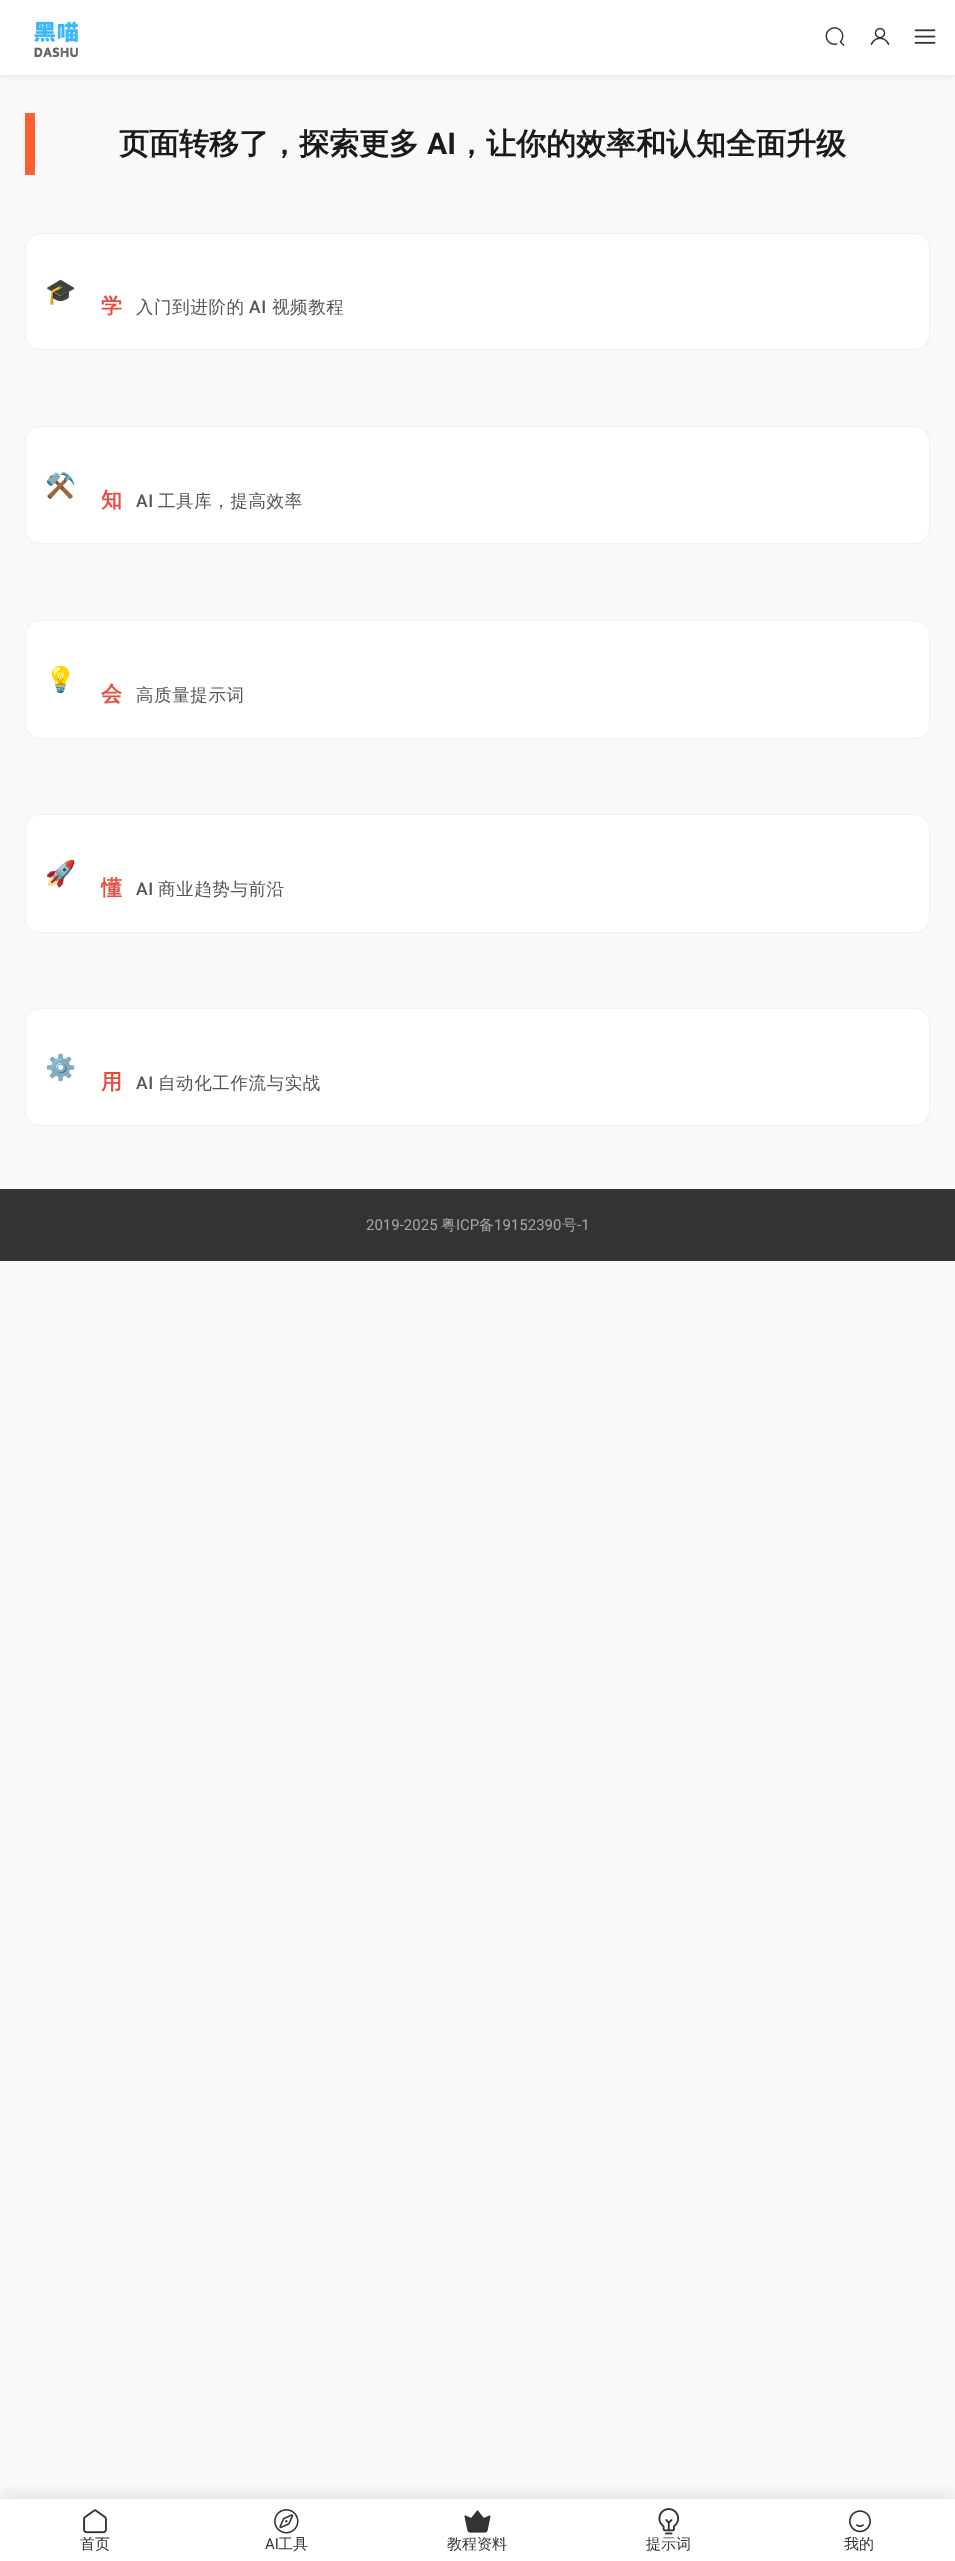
<svg xmlns="http://www.w3.org/2000/svg" width="955" height="2561" viewBox="0 0 955 2561">
  <defs>
    <filter id="blur1" x="-50%" y="-200%" width="200%" height="500%"><feGaussianBlur stdDeviation="3"/></filter>
    <filter id="blur2" x="-50%" y="-200%" width="200%" height="500%"><feGaussianBlur stdDeviation="6"/></filter>
  </defs>
  <rect width="100%" height="100%" fill="#f9f9f9"/>
  <rect x="0" y="1" width="955" height="75" fill="#000000" fill-opacity="0.1" filter="url(#blur1)"/>
  <rect x="0" y="0" width="955" height="75" fill="#ffffff"/>
  <image x="34" y="21" width="44" height="37" href="img1.png"/>
  <image x="825" y="27" width="20" height="19" href="img2.png"/>
  <image x="870" y="27" width="20" height="18" href="img3.png"/>
  <image x="914" y="29" width="22" height="15" href="img4.png"/>
  <rect x="25" y="113" width="10" height="62" fill="#ff5f33"/>
  <text x="119" y="154" font-family="WenQuanYi Zen Hei" font-size="30" font-weight="bold" fill="#1a1a1a">页面转移了，探索更多</text>
  <text x="427" y="154" font-family="Roboto" font-size="30" font-weight="bold" fill="#1a1a1a">AI</text>
  <text x="456" y="154" font-family="WenQuanYi Zen Hei" font-size="30" font-weight="bold" fill="#1a1a1a">，让你的效率和认知全面升级</text>
  <rect x="25.5" y="233.5" width="904" height="116" rx="14.5" fill="#ffffff" stroke="#f0f0f0"/>
  <text x="45" y="300" font-family="Noto Color Emoji" font-size="25" fill="#333333">🎓</text>
  <text x="101" y="313" font-family="WenQuanYi Zen Hei" font-size="21" font-weight="bold" letter-spacing="0.6" fill="#e74c3c">学</text>
  <text x="136" y="313" font-family="WenQuanYi Zen Hei" font-size="17.5" font-weight="500" letter-spacing="0.6" fill="#555555">入门到进阶的</text>
  <text x="249" y="313" font-family="Roboto" font-size="17.5" font-weight="500" letter-spacing="0.6" fill="#555555">AI</text>
  <text x="272" y="313" font-family="WenQuanYi Zen Hei" font-size="17.5" font-weight="500" letter-spacing="0.6" fill="#555555">视频教程</text>
  <rect x="25.5" y="426.5" width="904" height="117" rx="14.5" fill="#ffffff" stroke="#f0f0f0"/>
  <text x="45" y="494" font-family="Noto Color Emoji" font-size="25" fill="#333333">⚒️</text>
  <text x="101" y="507" font-family="WenQuanYi Zen Hei" font-size="21" font-weight="bold" letter-spacing="0.6" fill="#e74c3c">知</text>
  <text x="136" y="507" font-family="Roboto" font-size="17.5" font-weight="500" letter-spacing="0.6" fill="#555555">AI</text>
  <text x="158" y="507" font-family="WenQuanYi Zen Hei" font-size="17.5" font-weight="500" letter-spacing="0.6" fill="#555555">工具库，提高效率</text>
  <rect x="25.5" y="620.5" width="904" height="118" rx="14.5" fill="#ffffff" stroke="#f0f0f0"/>
  <text x="45" y="688" font-family="Noto Color Emoji" font-size="25" fill="#333333">💡</text>
  <text x="101" y="701" font-family="WenQuanYi Zen Hei" font-size="21" font-weight="bold" letter-spacing="0.6" fill="#e74c3c">会</text>
  <text x="136" y="701" font-family="WenQuanYi Zen Hei" font-size="17.5" font-weight="500" letter-spacing="0.6" fill="#555555">高质量提示词</text>
  <rect x="25.5" y="814.5" width="904" height="118" rx="14.5" fill="#ffffff" stroke="#f0f0f0"/>
  <text x="45" y="882" font-family="Noto Color Emoji" font-size="25" fill="#333333">🚀</text>
  <text x="101" y="895" font-family="WenQuanYi Zen Hei" font-size="21" font-weight="bold" letter-spacing="0.6" fill="#e74c3c">懂</text>
  <text x="136" y="895" font-family="Roboto" font-size="17.5" font-weight="500" letter-spacing="0.6" fill="#555555">AI</text>
  <text x="158" y="895" font-family="WenQuanYi Zen Hei" font-size="17.5" font-weight="500" letter-spacing="0.6" fill="#555555">商业趋势与前沿</text>
  <rect x="25.5" y="1008.5" width="904" height="117" rx="14.5" fill="#ffffff" stroke="#f0f0f0"/>
  <text x="45" y="1076" font-family="Noto Color Emoji" font-size="25" fill="#333333">⚙️</text>
  <text x="101" y="1089" font-family="WenQuanYi Zen Hei" font-size="21" font-weight="bold" letter-spacing="0.6" fill="#e74c3c">用</text>
  <text x="136" y="1089" font-family="Roboto" font-size="17.5" font-weight="500" letter-spacing="0.6" fill="#555555">AI</text>
  <text x="158" y="1089" font-family="WenQuanYi Zen Hei" font-size="17.5" font-weight="500" letter-spacing="0.6" fill="#555555">自动化工作流与实战</text>
  <rect x="0" y="1189" width="955" height="72" fill="#333333"/>
  <text x="366" y="1230" font-family="Roboto" font-size="15" fill="#a7a7a7">2019-2025</text>
  <text x="441" y="1230" font-family="WenQuanYi Zen Hei" font-size="15" font-weight="500" fill="#a7a7a7">粤</text>
  <text x="456" y="1230" font-family="Roboto" font-size="15" fill="#a7a7a7">ICP</text>
  <text x="479" y="1230" font-family="WenQuanYi Zen Hei" font-size="15" font-weight="500" fill="#a7a7a7">备</text>
  <text x="494" y="1230" font-family="Roboto" font-size="15" fill="#a7a7a7">19152390</text>
  <text x="562" y="1230" font-family="WenQuanYi Zen Hei" font-size="15" font-weight="500" fill="#a7a7a7">号</text>
  <text x="577" y="1230" font-family="Roboto" font-size="15" fill="#a7a7a7">-1</text>
  <rect x="0" y="2494" width="955" height="62" fill="#113a5d" fill-opacity="0.1" filter="url(#blur2)"/>
  <rect x="0" y="2499" width="955" height="62" fill="#ffffff"/>
  <image x="83" y="2509" width="24" height="25" href="img5.png"/>
  <text x="80" y="2549" font-family="WenQuanYi Zen Hei" font-size="15" font-weight="500" fill="#333333">首页</text>
  <image x="274" y="2509" width="25" height="25" href="img6.png"/>
  <text x="265" y="2549" font-family="Roboto" font-size="15" fill="#333333">AI</text>
  <text x="278" y="2549" font-family="WenQuanYi Zen Hei" font-size="15" font-weight="500" fill="#333333">工具</text>
  <image x="464" y="2510" width="27" height="23" href="img7.png"/>
  <text x="447" y="2549" font-family="WenQuanYi Zen Hei" font-size="15" font-weight="500" fill="#333333">教程资料</text>
  <image x="658" y="2508" width="22" height="27" href="img8.png"/>
  <text x="646" y="2549" font-family="WenQuanYi Zen Hei" font-size="15" font-weight="500" fill="#333333">提示词</text>
  <image x="849" y="2510" width="22" height="23" href="img9.png"/>
  <text x="844" y="2549" font-family="WenQuanYi Zen Hei" font-size="15" font-weight="500" fill="#333333">我的</text>
</svg>
